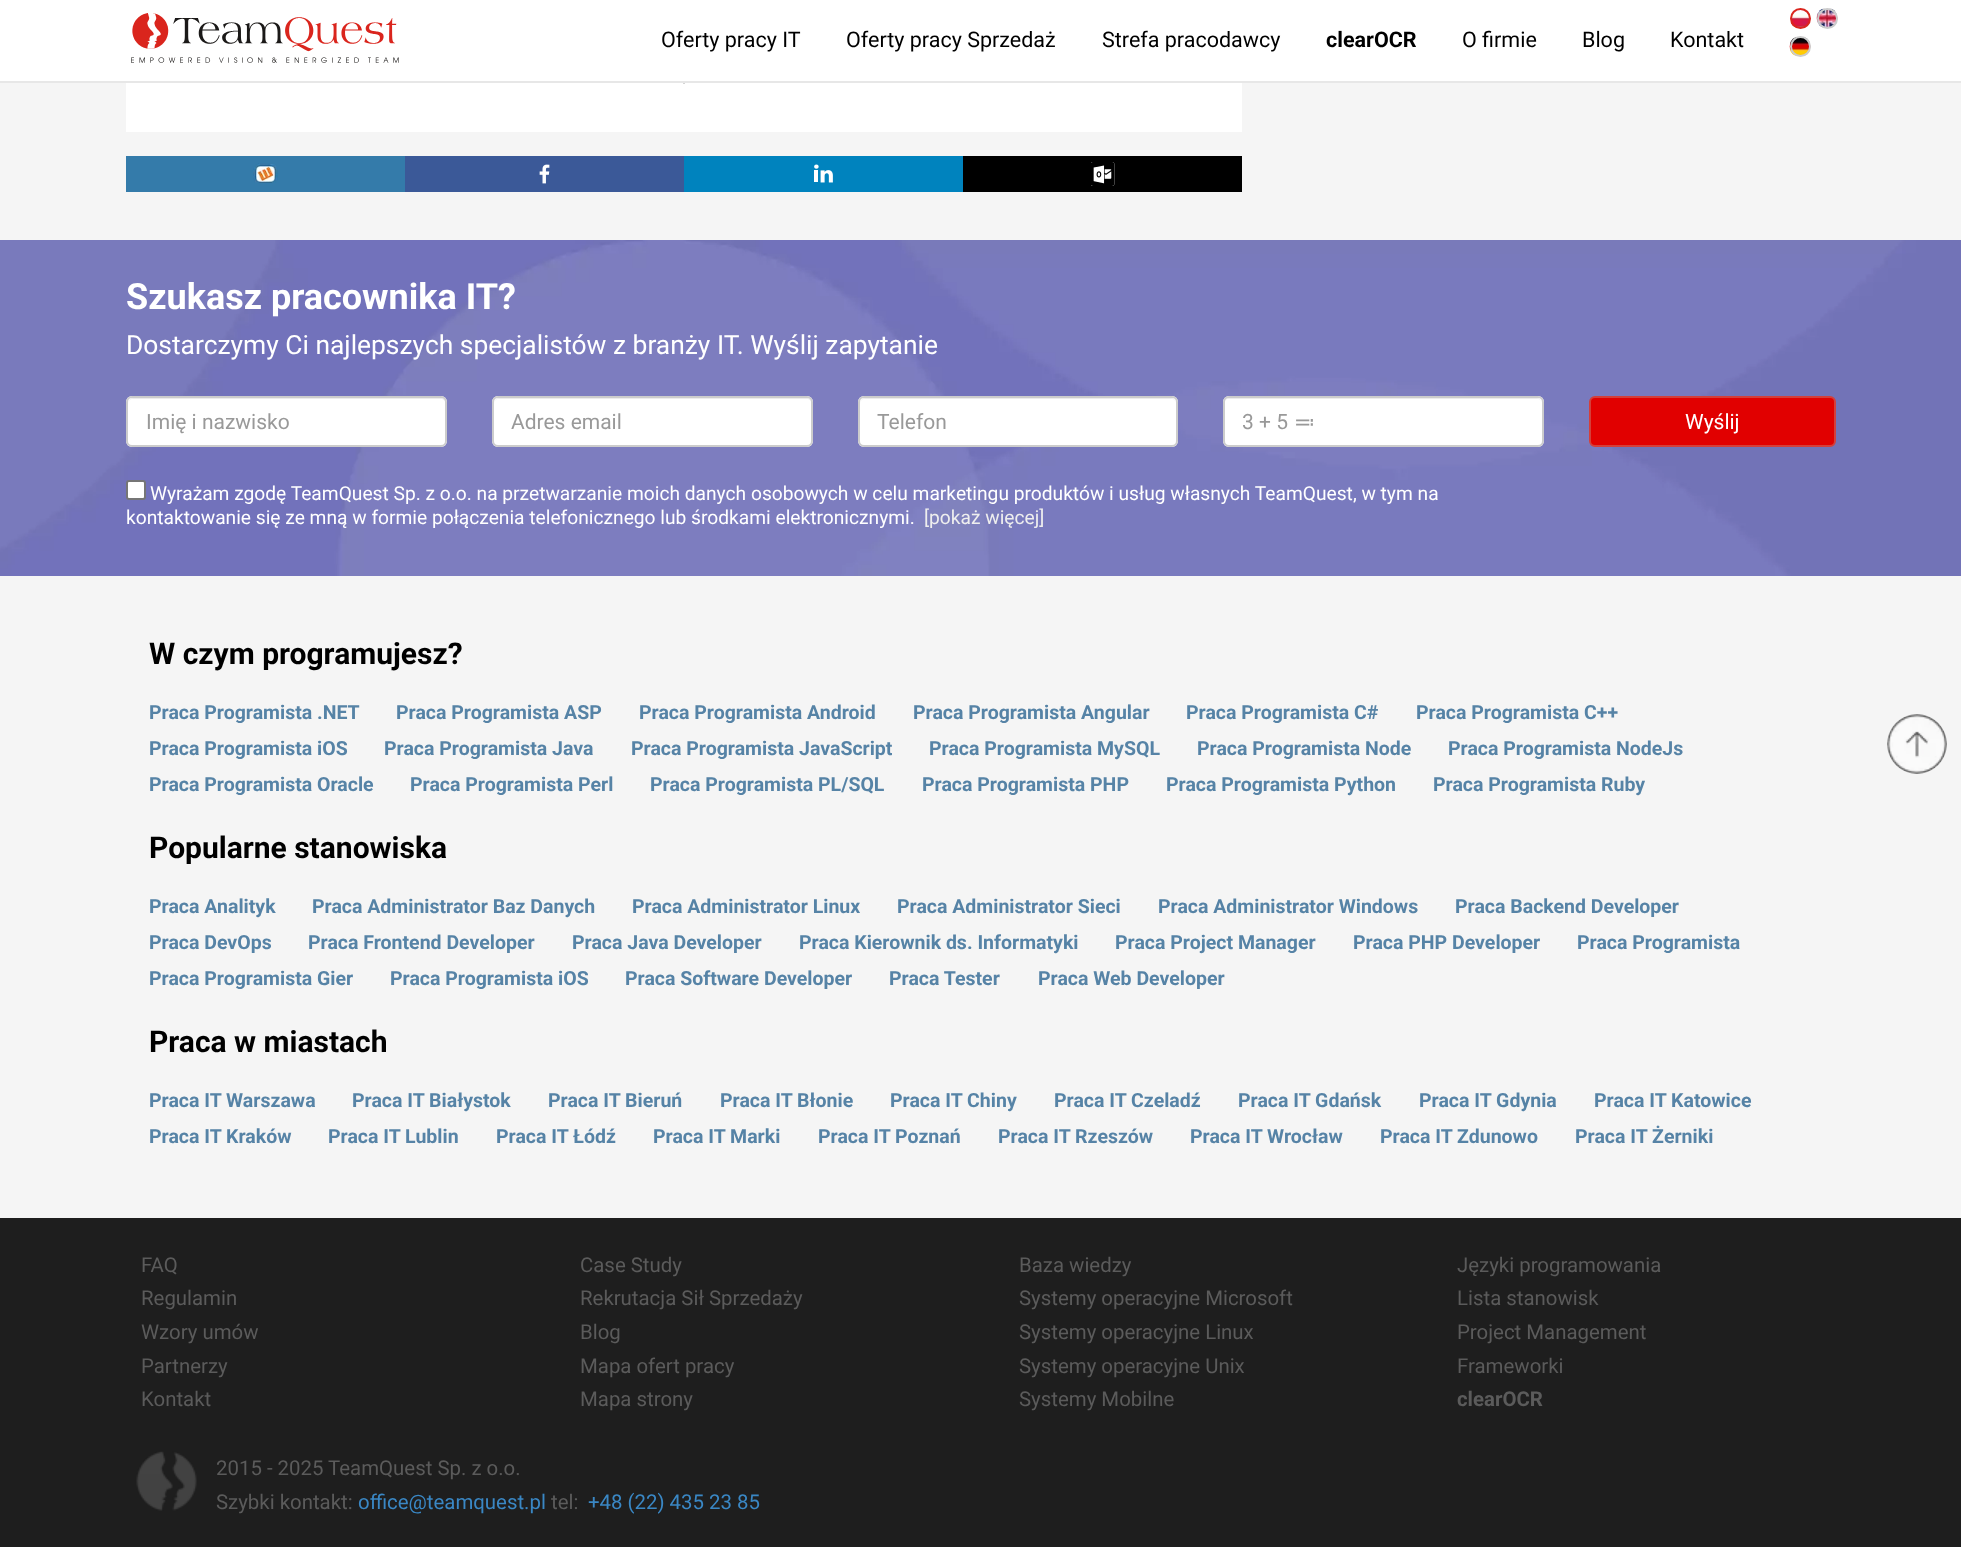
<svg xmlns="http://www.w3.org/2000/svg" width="1961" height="1547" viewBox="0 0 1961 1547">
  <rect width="100%" height="100%" fill="#f5f5f5"/>
  <rect x="0" y="0" width="1961" height="81" fill="#ffffff"/>
  <rect x="0" y="81" width="1961" height="2" fill="#e7e7e7"/>
  <image x="131" y="13" width="268" height="50" href="img1.png"/>
  <text x="661" y="47" font-family="Roboto" font-size="21.5" fill="#000000">Oferty pracy IT</text>
  <text x="846" y="47" font-family="Roboto" font-size="21.5" fill="#000000">Oferty pracy Sprzedaż</text>
  <text x="1102" y="47" font-family="Roboto" font-size="21.5" fill="#000000">Strefa pracodawcy</text>
  <text x="1326" y="47" font-family="Roboto" font-size="21.5" font-weight="bold" fill="#000000">clearOCR</text>
  <text x="1462" y="47" font-family="Roboto" font-size="21.5" fill="#000000">O firmie</text>
  <text x="1582" y="47" font-family="Roboto" font-size="21.5" fill="#000000">Blog</text>
  <text x="1670" y="47" font-family="Roboto" font-size="21.5" fill="#000000">Kontakt</text>
  <image x="1791" y="9" width="20" height="19" href="img2.png"/>
  <circle cx="1800.5" cy="18.5" r="9.5" fill="none" stroke="#da251d" stroke-width="2"/>
  <image x="1816" y="8" width="22" height="20" href="img3.png"/>
  <circle cx="1827.5" cy="18.5" r="9.5" fill="none" stroke="#cccccc" stroke-width="2"/>
  <image x="1789" y="37" width="22" height="19" href="img4.png"/>
  <circle cx="1800.5" cy="46.5" r="9.5" fill="none" stroke="#cccccc" stroke-width="2"/>
  <rect x="126" y="83" width="1116" height="49" fill="#ffffff"/>
  <rect x="683" y="83" width="2" height="1" fill="#d4d4d4"/>
  <rect x="126" y="156" width="279" height="36" fill="#347baa"/>
  <image x="253" y="163" width="25" height="20" href="img5.png"/>
  <rect x="405" y="156" width="279" height="36" fill="#3b5998"/>
  <image x="539" y="164" width="11" height="20" href="img6.png"/>
  <rect x="684" y="156" width="279" height="36" fill="#0083be"/>
  <image x="814" y="164" width="19" height="19" href="img7.png"/>
  <rect x="963" y="156" width="279" height="36" fill="#000000"/>
  <image x="1091" y="162" width="24" height="24" href="img8.png"/>
  <image x="0" y="240" width="1961" height="336" href="img9.png"/>
  <text x="126" y="309" font-family="Roboto" font-size="36" font-weight="bold" fill="#ffffff">Szukasz pracownika IT?</text>
  <text x="126" y="354" font-family="Roboto" font-size="26.4" fill="#ffffff">Dostarczymy Ci najlepszych specjalistów z branży IT. Wyślij zapytanie</text>
  <rect x="126" y="396" width="321" height="51" rx="6" fill="#ffffff"/>
  <path d="M132 399H441C443 399 446 401 446 404C446 401 444 398 441 398H133C130 398 128 401 128 404C128 401 130 399 132 399Z" fill="#ececec"/>
  <rect x="127" y="397" width="319" height="49" rx="5" fill="none" stroke="#cccccc" stroke-width="2"/>
  <text x="146" y="429" font-family="Roboto" font-size="21" fill="#999999">Imię i nazwisko</text>
  <rect x="492" y="396" width="321" height="51" rx="6" fill="#ffffff"/>
  <path d="M498 399H807C809 399 812 401 812 404C812 401 810 398 807 398H499C496 398 494 401 494 404C494 401 496 399 498 399Z" fill="#ececec"/>
  <rect x="493" y="397" width="319" height="49" rx="5" fill="none" stroke="#cccccc" stroke-width="2"/>
  <text x="511" y="429" font-family="Roboto" font-size="21" fill="#999999">Adres email</text>
  <rect x="858" y="396" width="320" height="51" rx="6" fill="#ffffff"/>
  <path d="M864 399H1172C1174 399 1176 401 1176 404C1176 401 1174 398 1171 398H865C862 398 860 401 860 404C860 401 862 399 864 399Z" fill="#ececec"/>
  <rect x="859" y="397" width="318" height="49" rx="5" fill="none" stroke="#cccccc" stroke-width="2"/>
  <text x="877" y="429" font-family="Roboto" font-size="21" fill="#999999">Telefon</text>
  <rect x="1223" y="396" width="321" height="51" rx="6" fill="#ffffff"/>
  <path d="M1228 399H1538C1540 399 1542 401 1542 404C1542 401 1540 398 1537 398H1229C1226 398 1224 401 1224 404C1224 401 1226 399 1228 399Z" fill="#ececec"/>
  <rect x="1224" y="397" width="319" height="49" rx="5" fill="none" stroke="#cccccc" stroke-width="2"/>
  <text x="1242" y="429" font-family="Roboto" font-size="21" fill="#999999">3 + 5</text>
  <text x="1294" y="429" font-family="DejaVu Sans" font-size="21" fill="#999999">≕</text>
  <rect x="127" y="481" width="18" height="18" rx="2" fill="#ffffff" stroke="#767676" stroke-width="2"/>
  <text x="150" y="500" font-family="Roboto" font-size="19.2" fill="#ffffff">Wyrażam zgodę TeamQuest Sp. z o.o. na przetwarzanie moich danych osobowych w celu marketingu produktów i usług własnych TeamQuest, w tym na</text>
  <text x="126" y="524" font-family="Roboto" font-size="19.2" fill="#ffffff">kontaktowanie się ze mną w formie połączenia telefonicznego lub środkami elektronicznymi.</text>
  <text x="924" y="524" font-family="Roboto" font-size="19.2" fill="#eeeeee">[pokaż więcej]</text>
  <rect x="1590" y="397" width="245" height="49" rx="5" fill="#e10000" stroke="#d43f3a" stroke-width="2"/>
  <text x="1685" y="429" font-family="Roboto" font-size="21" fill="#ffffff">Wyślij</text>
  <text x="149" y="664" font-family="Roboto" font-size="30" font-weight="bold" fill="#000000">W czym programujesz?</text>
  <text x="149" y="719" font-family="Roboto" font-size="19.5" font-weight="bold" fill="#5683a6">Praca Programista .NET</text>
  <text x="396" y="719" font-family="Roboto" font-size="19.5" font-weight="bold" fill="#5683a6">Praca Programista ASP</text>
  <text x="639" y="719" font-family="Roboto" font-size="19.5" font-weight="bold" fill="#5683a6">Praca Programista Android</text>
  <text x="913" y="719" font-family="Roboto" font-size="19.5" font-weight="bold" fill="#5683a6">Praca Programista Angular</text>
  <text x="1186" y="719" font-family="Roboto" font-size="19.5" font-weight="bold" fill="#5683a6">Praca Programista C#</text>
  <text x="1416" y="719" font-family="Roboto" font-size="19.5" font-weight="bold" fill="#5683a6">Praca Programista C++</text>
  <text x="149" y="755" font-family="Roboto" font-size="19.5" font-weight="bold" fill="#5683a6">Praca Programista iOS</text>
  <text x="384" y="755" font-family="Roboto" font-size="19.5" font-weight="bold" fill="#5683a6">Praca Programista Java</text>
  <text x="631" y="755" font-family="Roboto" font-size="19.5" font-weight="bold" fill="#5683a6">Praca Programista JavaScript</text>
  <text x="929" y="755" font-family="Roboto" font-size="19.5" font-weight="bold" fill="#5683a6">Praca Programista MySQL</text>
  <text x="1197" y="755" font-family="Roboto" font-size="19.5" font-weight="bold" fill="#5683a6">Praca Programista Node</text>
  <text x="1448" y="755" font-family="Roboto" font-size="19.5" font-weight="bold" fill="#5683a6">Praca Programista NodeJs</text>
  <text x="149" y="791" font-family="Roboto" font-size="19.5" font-weight="bold" fill="#5683a6">Praca Programista Oracle</text>
  <text x="410" y="791" font-family="Roboto" font-size="19.5" font-weight="bold" fill="#5683a6">Praca Programista Perl</text>
  <text x="650" y="791" font-family="Roboto" font-size="19.5" font-weight="bold" fill="#5683a6">Praca Programista PL/SQL</text>
  <text x="922" y="791" font-family="Roboto" font-size="19.5" font-weight="bold" fill="#5683a6">Praca Programista PHP</text>
  <text x="1166" y="791" font-family="Roboto" font-size="19.5" font-weight="bold" fill="#5683a6">Praca Programista Python</text>
  <text x="1433" y="791" font-family="Roboto" font-size="19.5" font-weight="bold" fill="#5683a6">Praca Programista Ruby</text>
  <text x="149" y="858" font-family="Roboto" font-size="30" font-weight="bold" fill="#000000">Popularne stanowiska</text>
  <text x="149" y="913" font-family="Roboto" font-size="19.5" font-weight="bold" fill="#5683a6">Praca Analityk</text>
  <text x="312" y="913" font-family="Roboto" font-size="19.5" font-weight="bold" fill="#5683a6">Praca Administrator Baz Danych</text>
  <text x="632" y="913" font-family="Roboto" font-size="19.5" font-weight="bold" fill="#5683a6">Praca Administrator Linux</text>
  <text x="897" y="913" font-family="Roboto" font-size="19.5" font-weight="bold" fill="#5683a6">Praca Administrator Sieci</text>
  <text x="1158" y="913" font-family="Roboto" font-size="19.5" font-weight="bold" fill="#5683a6">Praca Administrator Windows</text>
  <text x="1455" y="913" font-family="Roboto" font-size="19.5" font-weight="bold" fill="#5683a6">Praca Backend Developer</text>
  <text x="149" y="949" font-family="Roboto" font-size="19.5" font-weight="bold" fill="#5683a6">Praca DevOps</text>
  <text x="308" y="949" font-family="Roboto" font-size="19.5" font-weight="bold" fill="#5683a6">Praca Frontend Developer</text>
  <text x="572" y="949" font-family="Roboto" font-size="19.5" font-weight="bold" fill="#5683a6">Praca Java Developer</text>
  <text x="799" y="949" font-family="Roboto" font-size="19.5" font-weight="bold" fill="#5683a6">Praca Kierownik ds. Informatyki</text>
  <text x="1115" y="949" font-family="Roboto" font-size="19.5" font-weight="bold" fill="#5683a6">Praca Project Manager</text>
  <text x="1353" y="949" font-family="Roboto" font-size="19.5" font-weight="bold" fill="#5683a6">Praca PHP Developer</text>
  <text x="1577" y="949" font-family="Roboto" font-size="19.5" font-weight="bold" fill="#5683a6">Praca Programista</text>
  <text x="149" y="985" font-family="Roboto" font-size="19.5" font-weight="bold" fill="#5683a6">Praca Programista Gier</text>
  <text x="390" y="985" font-family="Roboto" font-size="19.5" font-weight="bold" fill="#5683a6">Praca Programista iOS</text>
  <text x="625" y="985" font-family="Roboto" font-size="19.5" font-weight="bold" fill="#5683a6">Praca Software Developer</text>
  <text x="889" y="985" font-family="Roboto" font-size="19.5" font-weight="bold" fill="#5683a6">Praca Tester</text>
  <text x="1038" y="985" font-family="Roboto" font-size="19.5" font-weight="bold" fill="#5683a6">Praca Web Developer</text>
  <text x="149" y="1052" font-family="Roboto" font-size="30" font-weight="bold" fill="#000000">Praca w miastach</text>
  <text x="149" y="1107" font-family="Roboto" font-size="19.5" font-weight="bold" fill="#5683a6">Praca IT Warszawa</text>
  <text x="352" y="1107" font-family="Roboto" font-size="19.5" font-weight="bold" fill="#5683a6">Praca IT Białystok</text>
  <text x="548" y="1107" font-family="Roboto" font-size="19.5" font-weight="bold" fill="#5683a6">Praca IT Bieruń</text>
  <text x="720" y="1107" font-family="Roboto" font-size="19.5" font-weight="bold" fill="#5683a6">Praca IT Błonie</text>
  <text x="890" y="1107" font-family="Roboto" font-size="19.5" font-weight="bold" fill="#5683a6">Praca IT Chiny</text>
  <text x="1054" y="1107" font-family="Roboto" font-size="19.5" font-weight="bold" fill="#5683a6">Praca IT Czeladź</text>
  <text x="1238" y="1107" font-family="Roboto" font-size="19.5" font-weight="bold" fill="#5683a6">Praca IT Gdańsk</text>
  <text x="1419" y="1107" font-family="Roboto" font-size="19.5" font-weight="bold" fill="#5683a6">Praca IT Gdynia</text>
  <text x="1594" y="1107" font-family="Roboto" font-size="19.5" font-weight="bold" fill="#5683a6">Praca IT Katowice</text>
  <text x="149" y="1143" font-family="Roboto" font-size="19.5" font-weight="bold" fill="#5683a6">Praca IT Kraków</text>
  <text x="328" y="1143" font-family="Roboto" font-size="19.5" font-weight="bold" fill="#5683a6">Praca IT Lublin</text>
  <text x="496" y="1143" font-family="Roboto" font-size="19.5" font-weight="bold" fill="#5683a6">Praca IT Łódź</text>
  <text x="653" y="1143" font-family="Roboto" font-size="19.5" font-weight="bold" fill="#5683a6">Praca IT Marki</text>
  <text x="818" y="1143" font-family="Roboto" font-size="19.5" font-weight="bold" fill="#5683a6">Praca IT Poznań</text>
  <text x="998" y="1143" font-family="Roboto" font-size="19.5" font-weight="bold" fill="#5683a6">Praca IT Rzeszów</text>
  <text x="1190" y="1143" font-family="Roboto" font-size="19.5" font-weight="bold" fill="#5683a6">Praca IT Wrocław</text>
  <text x="1380" y="1143" font-family="Roboto" font-size="19.5" font-weight="bold" fill="#5683a6">Praca IT Zdunowo</text>
  <text x="1575" y="1143" font-family="Roboto" font-size="19.5" font-weight="bold" fill="#5683a6">Praca IT Żerniki</text>
  <image x="1887" y="714" width="60" height="60" href="img10.png"/>
  <rect x="0" y="1218" width="1961" height="329" fill="#1e1e1e"/>
  <text x="141" y="1272" font-family="Roboto" font-size="20.4" fill="#5b5b5b">FAQ</text>
  <text x="141" y="1305" font-family="Roboto" font-size="20.4" fill="#5b5b5b">Regulamin</text>
  <text x="141" y="1339" font-family="Roboto" font-size="20.4" fill="#5b5b5b">Wzory umów</text>
  <text x="141" y="1373" font-family="Roboto" font-size="20.4" fill="#5b5b5b">Partnerzy</text>
  <text x="141" y="1406" font-family="Roboto" font-size="20.4" fill="#5b5b5b">Kontakt</text>
  <text x="580" y="1272" font-family="Roboto" font-size="20.4" fill="#5b5b5b">Case Study</text>
  <text x="580" y="1305" font-family="Roboto" font-size="20.4" fill="#5b5b5b">Rekrutacja Sił Sprzedaży</text>
  <text x="580" y="1339" font-family="Roboto" font-size="20.4" fill="#5b5b5b">Blog</text>
  <text x="580" y="1373" font-family="Roboto" font-size="20.4" fill="#5b5b5b">Mapa ofert pracy</text>
  <text x="580" y="1406" font-family="Roboto" font-size="20.4" fill="#5b5b5b">Mapa strony</text>
  <text x="1019" y="1272" font-family="Roboto" font-size="20.4" fill="#5b5b5b">Baza wiedzy</text>
  <text x="1019" y="1305" font-family="Roboto" font-size="20.4" fill="#5b5b5b">Systemy operacyjne Microsoft</text>
  <text x="1019" y="1339" font-family="Roboto" font-size="20.4" fill="#5b5b5b">Systemy operacyjne Linux</text>
  <text x="1019" y="1373" font-family="Roboto" font-size="20.4" fill="#5b5b5b">Systemy operacyjne Unix</text>
  <text x="1019" y="1406" font-family="Roboto" font-size="20.4" fill="#5b5b5b">Systemy Mobilne</text>
  <text x="1457" y="1272" font-family="Roboto" font-size="20.4" fill="#5b5b5b">Języki programowania</text>
  <text x="1457" y="1305" font-family="Roboto" font-size="20.4" fill="#5b5b5b">Lista stanowisk</text>
  <text x="1457" y="1339" font-family="Roboto" font-size="20.4" fill="#5b5b5b">Project Management</text>
  <text x="1457" y="1373" font-family="Roboto" font-size="20.4" fill="#5b5b5b">Frameworki</text>
  <text x="1457" y="1406" font-family="Roboto" font-size="20.4" font-weight="bold" fill="#5b5b5b">clearOCR</text>
  <image x="136" y="1451" width="61" height="60" href="img11.png"/>
  <text x="216" y="1475" font-family="Roboto" font-size="20.4" fill="#5b5b5b">2015 - 2025 TeamQuest Sp. z o.o.</text>
  <text x="216" y="1509" font-family="Roboto" font-size="20.4" fill="#5b5b5b">Szybki kontakt:</text>
  <text x="358" y="1509" font-family="Roboto" font-size="20.4" fill="#3a87c4">office@teamquest.pl</text>
  <text x="551" y="1509" font-family="Roboto" font-size="20.4" fill="#5b5b5b">tel:</text>
  <text x="588" y="1509" font-family="Roboto" font-size="20.4" fill="#3a87c4">+48 (22) 435 23 85</text>
</svg>
